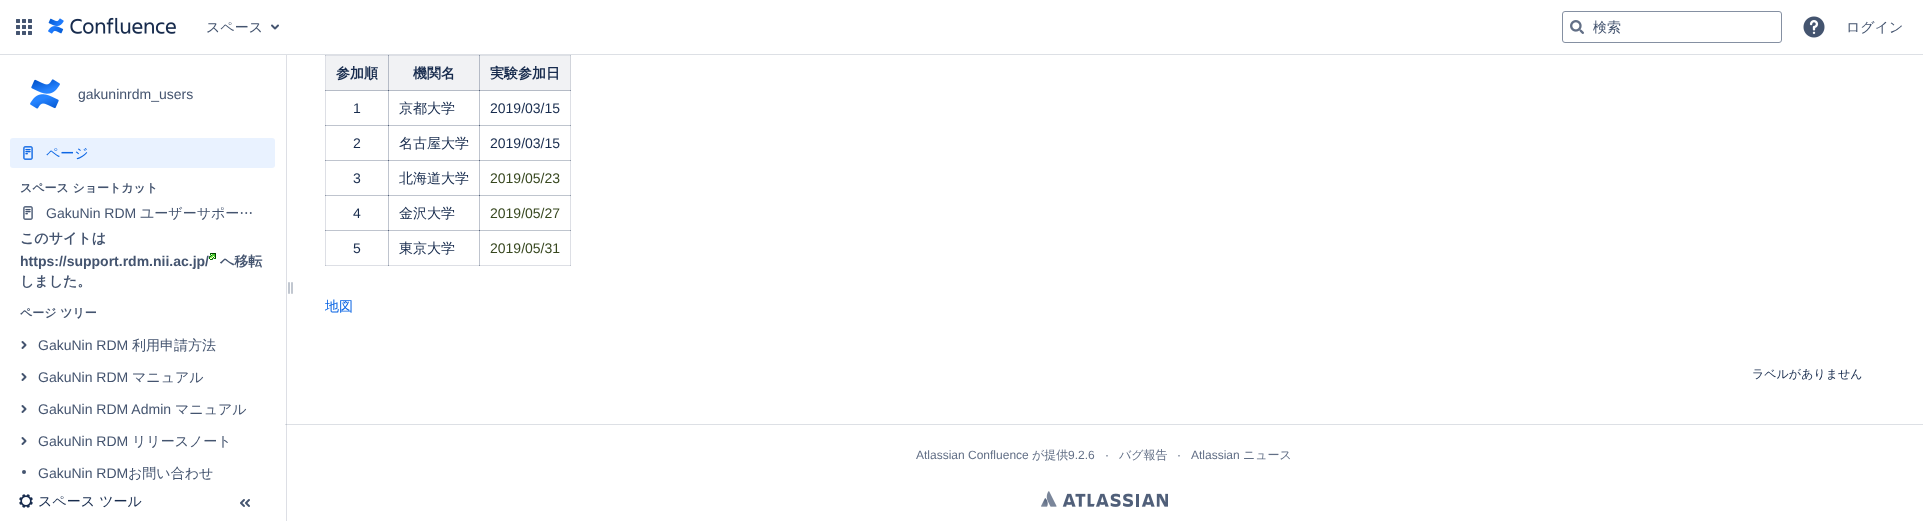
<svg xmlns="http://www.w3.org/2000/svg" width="1923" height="521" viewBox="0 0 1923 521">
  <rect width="100%" height="100%" fill="#ffffff"/>
  <rect x="286" y="55" width="1" height="466" fill="#dddfe5"/>
  <rect x="325" y="55" width="1" height="211" fill="#dddfe5"/>
  <rect x="325" y="55" width="155" height="1" fill="#dddfe5"/>
  <rect x="325" y="55" width="1" height="1" fill="#bfc4ce"/>
  <rect x="388" y="55" width="1" height="1" fill="#9099a9"/>
  <rect x="325" y="90" width="1" height="1" fill="#9099a9"/>
  <rect x="388" y="90" width="1" height="36" fill="#bfc4ce"/>
  <rect x="479" y="90" width="1" height="36" fill="#bfc4ce"/>
  <rect x="570" y="90" width="1" height="141" fill="#dddfe5"/>
  <rect x="325" y="125" width="64" height="1" fill="#bfc4ce"/>
  <rect x="325" y="125" width="1" height="1" fill="#9099a9"/>
  <rect x="388" y="125" width="1" height="36" fill="#bfc4ce"/>
  <rect x="388" y="125" width="92" height="1" fill="#bfc4ce"/>
  <rect x="388" y="125" width="1" height="1" fill="#53617b"/>
  <rect x="479" y="125" width="1" height="36" fill="#bfc4ce"/>
  <rect x="325" y="160" width="64" height="1" fill="#bfc4ce"/>
  <rect x="325" y="160" width="1" height="1" fill="#9099a9"/>
  <rect x="388" y="160" width="1" height="36" fill="#bfc4ce"/>
  <rect x="388" y="160" width="92" height="1" fill="#bfc4ce"/>
  <rect x="388" y="160" width="1" height="1" fill="#53617b"/>
  <rect x="479" y="160" width="1" height="36" fill="#bfc4ce"/>
  <rect x="325" y="195" width="64" height="1" fill="#bfc4ce"/>
  <rect x="325" y="195" width="1" height="1" fill="#9099a9"/>
  <rect x="388" y="195" width="1" height="36" fill="#bfc4ce"/>
  <rect x="388" y="195" width="92" height="1" fill="#bfc4ce"/>
  <rect x="388" y="195" width="1" height="1" fill="#53617b"/>
  <rect x="479" y="195" width="1" height="36" fill="#bfc4ce"/>
  <rect x="325" y="265" width="64" height="1" fill="#dddfe5"/>
  <rect x="325" y="265" width="1" height="1" fill="#bfc4ce"/>
  <rect x="325" y="230" width="64" height="1" fill="#bfc4ce"/>
  <rect x="325" y="230" width="1" height="1" fill="#9099a9"/>
  <rect x="388" y="230" width="1" height="36" fill="#bfc4ce"/>
  <rect x="388" y="265" width="92" height="1" fill="#dddfe5"/>
  <rect x="388" y="265" width="1" height="1" fill="#9099a9"/>
  <rect x="388" y="230" width="92" height="1" fill="#bfc4ce"/>
  <rect x="388" y="230" width="1" height="1" fill="#53617b"/>
  <rect x="479" y="230" width="1" height="36" fill="#bfc4ce"/>
  <rect x="479" y="265" width="92" height="1" fill="#dddfe5"/>
  <rect x="479" y="265" width="1" height="1" fill="#9099a9"/>
  <rect x="570" y="230" width="1" height="36" fill="#dddfe5"/>
  <rect x="570" y="265" width="1" height="1" fill="#bfc4ce"/>
  <rect x="0" y="54" width="1923" height="1" fill="#dde0e5"/>
  <image x="16" y="19" width="16" height="16" href="img1.png"/>
  <image x="48" y="17" width="128" height="17" href="img2.png"/>
  <text x="206" y="32" font-family="WenQuanYi Zen Hei" font-size="14" font-weight="500" fill="#44546f">スペース</text>
  <image x="271" y="24" width="8" height="6" href="img3.png"/>
  <rect x="1562.5" y="11.5" width="219" height="31" rx="2.5" fill="none" stroke="#8590a2"/>
  <image x="1570" y="20" width="14" height="14" href="img4.png"/>
  <text x="1593" y="32" font-family="WenQuanYi Zen Hei" font-size="14" font-weight="500" fill="#44546f">検索</text>
  <image x="1803" y="16" width="22" height="22" href="img5.png"/>
  <text x="1846" y="32" font-family="WenQuanYi Zen Hei" font-size="14" font-weight="500" fill="#44546f">ログイン</text>
  <image x="30" y="79" width="30" height="30" href="img6.png"/>
  <text x="78" y="99" font-family="Liberation Sans" font-size="14" fill="#44546f">gakuninrdm_users</text>
  <rect x="10" y="138" width="265" height="30" rx="3" fill="#e9f2ff"/>
  <image x="23" y="146" width="10" height="14" href="img7.png"/>
  <text x="46" y="158" font-family="WenQuanYi Zen Hei" font-size="14" font-weight="500" fill="#0c66e4">ページ</text>
  <text x="20" y="192" font-family="WenQuanYi Zen Hei" font-size="12" font-weight="bold" fill="#44546f">スペース ショートカット</text>
  <image x="23" y="206" width="10" height="14" href="img8.png"/>
  <text x="46" y="218" font-family="Liberation Sans" font-size="14" fill="#44546f">GakuNin RDM</text>
  <text x="140" y="218" font-family="WenQuanYi Zen Hei" font-size="14" font-weight="500" fill="#44546f">ユーザーサポー…</text>
  <text x="20" y="243" font-family="WenQuanYi Zen Hei" font-size="14" font-weight="bold" fill="#44546f">このサイトは</text>
  <text x="20" y="266" font-family="Liberation Sans" font-size="14" font-weight="bold" fill="#44546f">https://support.rdm.nii.ac.jp/</text>
  <image x="209" y="253" width="7" height="7" href="img9.png"/>
  <text x="220" y="266" font-family="WenQuanYi Zen Hei" font-size="14" font-weight="bold" fill="#44546f">へ移転</text>
  <text x="20" y="286" font-family="WenQuanYi Zen Hei" font-size="14" font-weight="bold" fill="#44546f">しました。</text>
  <text x="20" y="317" font-family="WenQuanYi Zen Hei" font-size="12" font-weight="bold" fill="#44546f">ページ ツリー</text>
  <image x="21" y="341" width="6" height="8" href="img10.png"/>
  <text x="38" y="350" font-family="Liberation Sans" font-size="14" fill="#44546f">GakuNin RDM</text>
  <text x="132" y="350" font-family="WenQuanYi Zen Hei" font-size="14" font-weight="500" fill="#44546f">利用申請方法</text>
  <image x="21" y="373" width="6" height="8" href="img10.png"/>
  <text x="38" y="382" font-family="Liberation Sans" font-size="14" fill="#44546f">GakuNin RDM</text>
  <text x="132" y="382" font-family="WenQuanYi Zen Hei" font-size="14" font-weight="500" fill="#44546f">マニュアル</text>
  <image x="21" y="405" width="6" height="8" href="img10.png"/>
  <text x="38" y="414" font-family="Liberation Sans" font-size="14" fill="#44546f">GakuNin RDM Admin</text>
  <text x="175" y="414" font-family="WenQuanYi Zen Hei" font-size="14" font-weight="500" fill="#44546f">マニュアル</text>
  <image x="21" y="437" width="6" height="8" href="img10.png"/>
  <text x="38" y="446" font-family="Liberation Sans" font-size="14" fill="#44546f">GakuNin RDM</text>
  <text x="132" y="446" font-family="WenQuanYi Zen Hei" font-size="14" font-weight="500" fill="#44546f">リリースノート</text>
  <circle cx="24" cy="472" r="2" fill="#44546f"/>
  <text x="38" y="478" font-family="Liberation Sans" font-size="14" fill="#44546f">GakuNin RDM</text>
  <text x="128" y="478" font-family="WenQuanYi Zen Hei" font-size="14" font-weight="500" fill="#44546f">お問い合わせ</text>
  <image x="288" y="282" width="5" height="12" href="img11.png"/>
  <image x="19" y="494" width="14" height="14" href="img12.png"/>
  <text x="38" y="506" font-family="WenQuanYi Zen Hei" font-size="14" font-weight="500" fill="#172b4d">スペース ツール</text>
  <image x="240" y="499" width="10" height="8" href="img13.png"/>
  <rect x="285" y="424" width="1638" height="1" fill="#dde0e5"/>
  <rect x="286" y="424" width="1" height="1" fill="#bfc5ce"/>
  <rect x="326" y="56" width="62" height="34" fill="#f1f2f4"/>
  <rect x="388" y="56" width="1" height="35" fill="#b5bbc6"/>
  <rect x="326" y="90" width="63" height="1" fill="#b5bbc6"/>
  <rect x="388" y="90" width="1" height="1" fill="#4f5e77"/>
  <text x="336" y="78" font-family="WenQuanYi Zen Hei" font-size="14" font-weight="bold" fill="#172b4d">参加順</text>
  <rect x="389" y="56" width="90" height="34" fill="#f1f2f4"/>
  <rect x="479" y="56" width="1" height="35" fill="#b5bbc6"/>
  <rect x="389" y="90" width="91" height="1" fill="#b5bbc6"/>
  <text x="413" y="78" font-family="WenQuanYi Zen Hei" font-size="14" font-weight="bold" fill="#172b4d">機関名</text>
  <rect x="480" y="56" width="90" height="34" fill="#f1f2f4"/>
  <rect x="570" y="56" width="1" height="35" fill="#d1d4db"/>
  <rect x="479" y="55" width="92" height="1" fill="#dde0e5"/>
  <rect x="479" y="55" width="1" height="1" fill="#909aa9"/>
  <rect x="570" y="55" width="1" height="1" fill="#bfc5ce"/>
  <text x="490" y="78" font-family="WenQuanYi Zen Hei" font-size="14" font-weight="bold" fill="#172b4d">実験参加日</text>
  <text x="353" y="113" font-family="Liberation Sans" font-size="14" fill="#172b4d">1</text>
  <text x="399" y="113" font-family="WenQuanYi Zen Hei" font-size="14" font-weight="500" fill="#172b4d">京都大学</text>
  <rect x="479" y="90" width="92" height="1" fill="#b5bbc6"/>
  <rect x="479" y="90" width="1" height="1" fill="#4f5e77"/>
  <rect x="570" y="90" width="1" height="1" fill="#8892a4"/>
  <text x="490" y="113" font-family="Liberation Sans" font-size="14" fill="#172b4d">2019/03/15</text>
  <text x="353" y="148" font-family="Liberation Sans" font-size="14" fill="#172b4d">2</text>
  <text x="399" y="148" font-family="WenQuanYi Zen Hei" font-size="14" font-weight="500" fill="#172b4d">名古屋大学</text>
  <rect x="479" y="125" width="92" height="1" fill="#bfc5ce"/>
  <rect x="479" y="125" width="1" height="1" fill="#53627b"/>
  <rect x="570" y="125" width="1" height="1" fill="#909aa9"/>
  <text x="490" y="148" font-family="Liberation Sans" font-size="14" fill="#172b4d">2019/03/15</text>
  <text x="353" y="183" font-family="Liberation Sans" font-size="14" fill="#172b4d">3</text>
  <text x="399" y="183" font-family="WenQuanYi Zen Hei" font-size="14" font-weight="500" fill="#172b4d">北海道大学</text>
  <rect x="479" y="160" width="92" height="1" fill="#bfc5ce"/>
  <rect x="479" y="160" width="1" height="1" fill="#53627b"/>
  <rect x="570" y="160" width="1" height="1" fill="#909aa9"/>
  <text x="490" y="183" font-family="Liberation Sans" font-size="14" fill="#37471f">2019/05/23</text>
  <text x="353" y="218" font-family="Liberation Sans" font-size="14" fill="#172b4d">4</text>
  <text x="399" y="218" font-family="WenQuanYi Zen Hei" font-size="14" font-weight="500" fill="#172b4d">金沢大学</text>
  <rect x="479" y="195" width="92" height="1" fill="#bfc5ce"/>
  <rect x="479" y="195" width="1" height="1" fill="#53627b"/>
  <rect x="570" y="195" width="1" height="1" fill="#909aa9"/>
  <text x="490" y="218" font-family="Liberation Sans" font-size="14" fill="#37471f">2019/05/27</text>
  <text x="353" y="253" font-family="Liberation Sans" font-size="14" fill="#172b4d">5</text>
  <text x="399" y="253" font-family="WenQuanYi Zen Hei" font-size="14" font-weight="500" fill="#172b4d">東京大学</text>
  <rect x="479" y="230" width="92" height="1" fill="#bfc5ce"/>
  <rect x="479" y="230" width="1" height="1" fill="#53627b"/>
  <rect x="570" y="230" width="1" height="1" fill="#909aa9"/>
  <text x="490" y="253" font-family="Liberation Sans" font-size="14" fill="#37471f">2019/05/31</text>
  <text x="325" y="311" font-family="WenQuanYi Zen Hei" font-size="14" font-weight="500" fill="#0c66e4">地図</text>
  <text x="1752" y="378" font-family="WenQuanYi Zen Hei" font-size="12" font-weight="500" fill="#172b4d">ラベルがありません</text>
  <text x="916" y="459" font-family="Liberation Sans" font-size="12" fill="#626f86">Atlassian Confluence</text>
  <text x="1032" y="459" font-family="WenQuanYi Zen Hei" font-size="12" font-weight="500" fill="#626f86">が提供</text>
  <text x="1068" y="459" font-family="Liberation Sans" font-size="12" fill="#626f86">9.2.6</text>
  <text x="1105" y="459" font-family="Liberation Sans" font-size="12" fill="#626f86">·</text>
  <text x="1119" y="459" font-family="WenQuanYi Zen Hei" font-size="12" font-weight="500" fill="#626f86">バグ報告</text>
  <text x="1177" y="459" font-family="Liberation Sans" font-size="12" fill="#626f86">·</text>
  <text x="1191" y="459" font-family="Liberation Sans" font-size="12" fill="#626f86">Atlassian</text>
  <text x="1243" y="459" font-family="WenQuanYi Zen Hei" font-size="12" font-weight="500" fill="#626f86">ニュース</text>
  <image x="1041" y="491" width="127" height="16" href="img14.png"/>
</svg>
